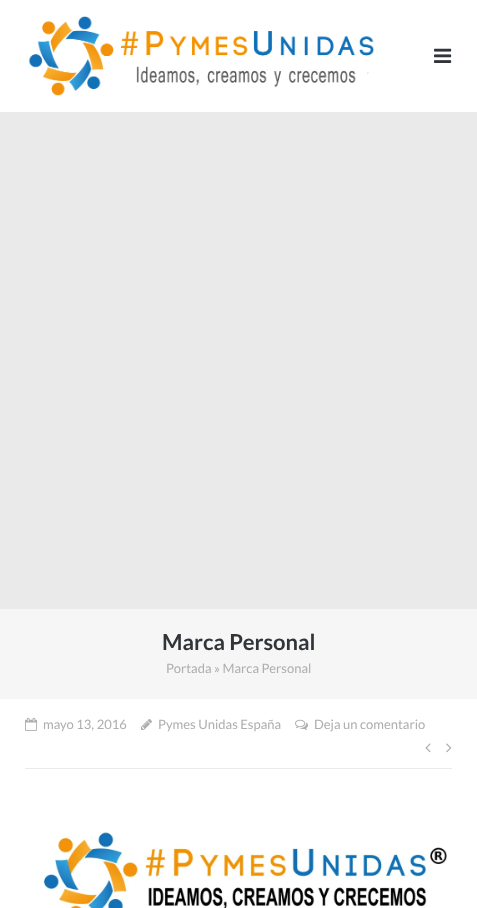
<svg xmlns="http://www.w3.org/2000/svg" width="477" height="908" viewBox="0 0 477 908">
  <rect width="100%" height="100%" fill="#eaeaea"/>
  <rect x="0" y="0" width="477" height="112" fill="#ffffff"/>
  <image x="28" y="16" width="346" height="80" href="img1.png"/>
  <image x="434" y="48" width="18" height="15" href="img2.png"/>
  <rect x="0" y="699" width="477" height="209" fill="#ffffff"/>
  <rect x="0" y="609" width="477" height="90" fill="#f6f6f7"/>
  <text x="162" y="650" font-family="Lato" font-size="22" font-weight="bold" fill="#313539">Marca Personal</text>
  <text x="166" y="673" font-family="Lato" font-size="13" fill="#acaeaf">Portada » Marca Personal</text>
  <rect x="25" y="768" width="427" height="1" fill="#eaeaeb"/>
  <image x="25" y="717" width="13" height="14" href="img3.png"/>
  <text x="43" y="729" font-family="Lato" font-size="13" fill="#acaeaf">mayo 13, 2016</text>
  <image x="141" y="719" width="11" height="11" href="img4.png"/>
  <text x="158" y="729" font-family="Lato" font-size="13" fill="#acaeaf">Pymes Unidas España</text>
  <image x="295" y="719" width="13" height="11" href="img5.png"/>
  <text x="314" y="729" font-family="Lato" font-size="13" fill="#acaeaf">Deja un comentario</text>
  <image x="425" y="743" width="6" height="10" href="img6.png"/>
  <image x="446" y="743" width="6" height="10" href="img7.png"/>
  <image x="43" y="832" width="404" height="76" href="img8.png"/>
</svg>
